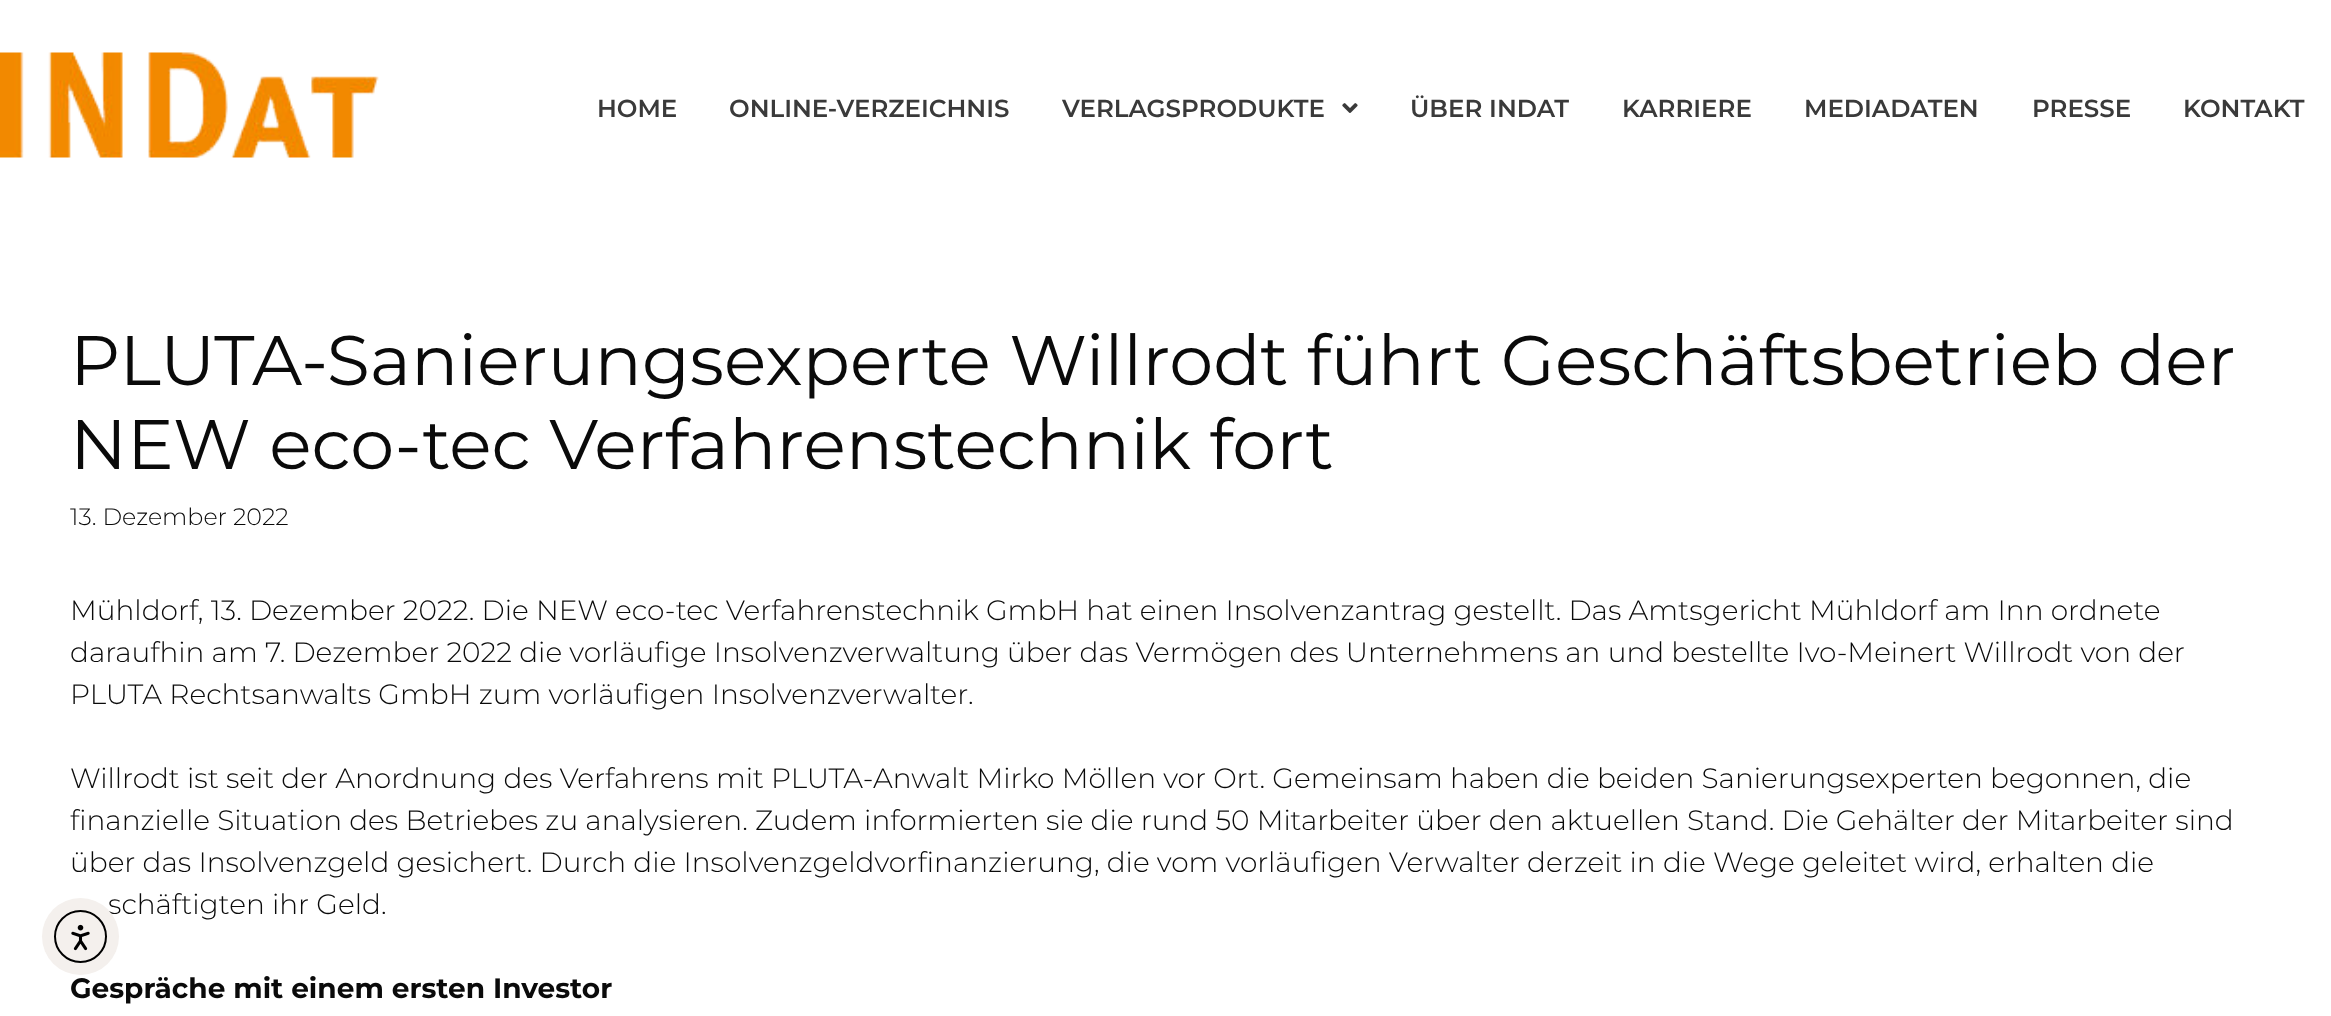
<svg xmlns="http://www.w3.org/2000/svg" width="2331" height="1016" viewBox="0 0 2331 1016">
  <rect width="100%" height="100%" fill="#ffffff"/>
  <image x="0" y="52" width="379" height="106" href="img1.png"/>
  <text x="597" y="117" font-family="Montserrat" font-size="24.5" font-weight="600" fill="#3a3a3a">HOME</text>
  <text x="729" y="117" font-family="Montserrat" font-size="24.5" font-weight="600" fill="#3a3a3a">ONLINE-VERZEICHNIS</text>
  <text x="1062" y="117" font-family="Montserrat" font-size="24.5" font-weight="600" fill="#3a3a3a">VERLAGSPRODUKTE</text>
  <image x="1342" y="103" width="16" height="10" href="img2.png"/>
  <text x="1410" y="117" font-family="Montserrat" font-size="24.5" font-weight="600" fill="#3a3a3a">ÜBER INDAT</text>
  <text x="1622" y="117" font-family="Montserrat" font-size="24.5" font-weight="600" fill="#3a3a3a">KARRIERE</text>
  <text x="1804" y="117" font-family="Montserrat" font-size="24.5" font-weight="600" fill="#3a3a3a">MEDIADATEN</text>
  <text x="2032" y="117" font-family="Montserrat" font-size="24.5" font-weight="600" fill="#3a3a3a">PRESSE</text>
  <text x="2183" y="117" font-family="Montserrat" font-size="24.5" font-weight="600" fill="#3a3a3a">KONTAKT</text>
  <text x="70" y="385" font-family="Montserrat" font-size="70" fill="#0a0a0a">PLUTA-Sanierungsexperte Willrodt führt Geschäftsbetrieb der</text>
  <text x="70" y="469" font-family="Montserrat" font-size="70" fill="#0a0a0a">NEW eco-tec Verfahrenstechnik fort</text>
  <text x="70" y="525" font-family="Montserrat" font-size="23.75" font-weight="300" fill="#0a0a0a">13. Dezember 2022</text>
  <text x="70" y="620" font-family="Montserrat" font-size="28" font-weight="300" fill="#0a0a0a">Mühldorf, 13. Dezember 2022. Die NEW eco-tec Verfahrenstechnik GmbH hat einen Insolvenzantrag gestellt. Das Amtsgericht Mühldorf am Inn ordnete</text>
  <text x="70" y="662" font-family="Montserrat" font-size="28" font-weight="300" fill="#0a0a0a">daraufhin am 7. Dezember 2022 die vorläufige Insolvenzverwaltung über das Vermögen des Unternehmens an und bestellte Ivo-Meinert Willrodt von der</text>
  <text x="70" y="704" font-family="Montserrat" font-size="28" font-weight="300" fill="#0a0a0a">PLUTA Rechtsanwalts GmbH zum vorläufigen Insolvenzverwalter.</text>
  <text x="70" y="788" font-family="Montserrat" font-size="28" font-weight="300" fill="#0a0a0a">Willrodt ist seit der Anordnung des Verfahrens mit PLUTA-Anwalt Mirko Möllen vor Ort. Gemeinsam haben die beiden Sanierungsexperten begonnen, die</text>
  <text x="70" y="830" font-family="Montserrat" font-size="28" font-weight="300" fill="#0a0a0a">finanzielle Situation des Betriebes zu analysieren. Zudem informierten sie die rund 50 Mitarbeiter über den aktuellen Stand. Die Gehälter der Mitarbeiter sind</text>
  <text x="70" y="872" font-family="Montserrat" font-size="28" font-weight="300" fill="#0a0a0a">über das Insolvenzgeld gesichert. Durch die Insolvenzgeldvorfinanzierung, die vom vorläufigen Verwalter derzeit in die Wege geleitet wird, erhalten die</text>
  <text x="108" y="914" font-family="Montserrat" font-size="28" font-weight="300" fill="#0a0a0a">schäftigten ihr Geld.</text>
  <text x="70" y="998" font-family="Montserrat" font-size="28" font-weight="bold" fill="#0a0a0a">Gespräche mit einem ersten Investor</text>
  <circle cx="80.5" cy="936.5" r="38.5" fill="#f4f0ed"/>
  <circle cx="80.5" cy="936.5" r="25.5" fill="none" stroke="#000000" stroke-width="2"/>
  <image x="71" y="924" width="19" height="27" href="img3.png"/>
</svg>
